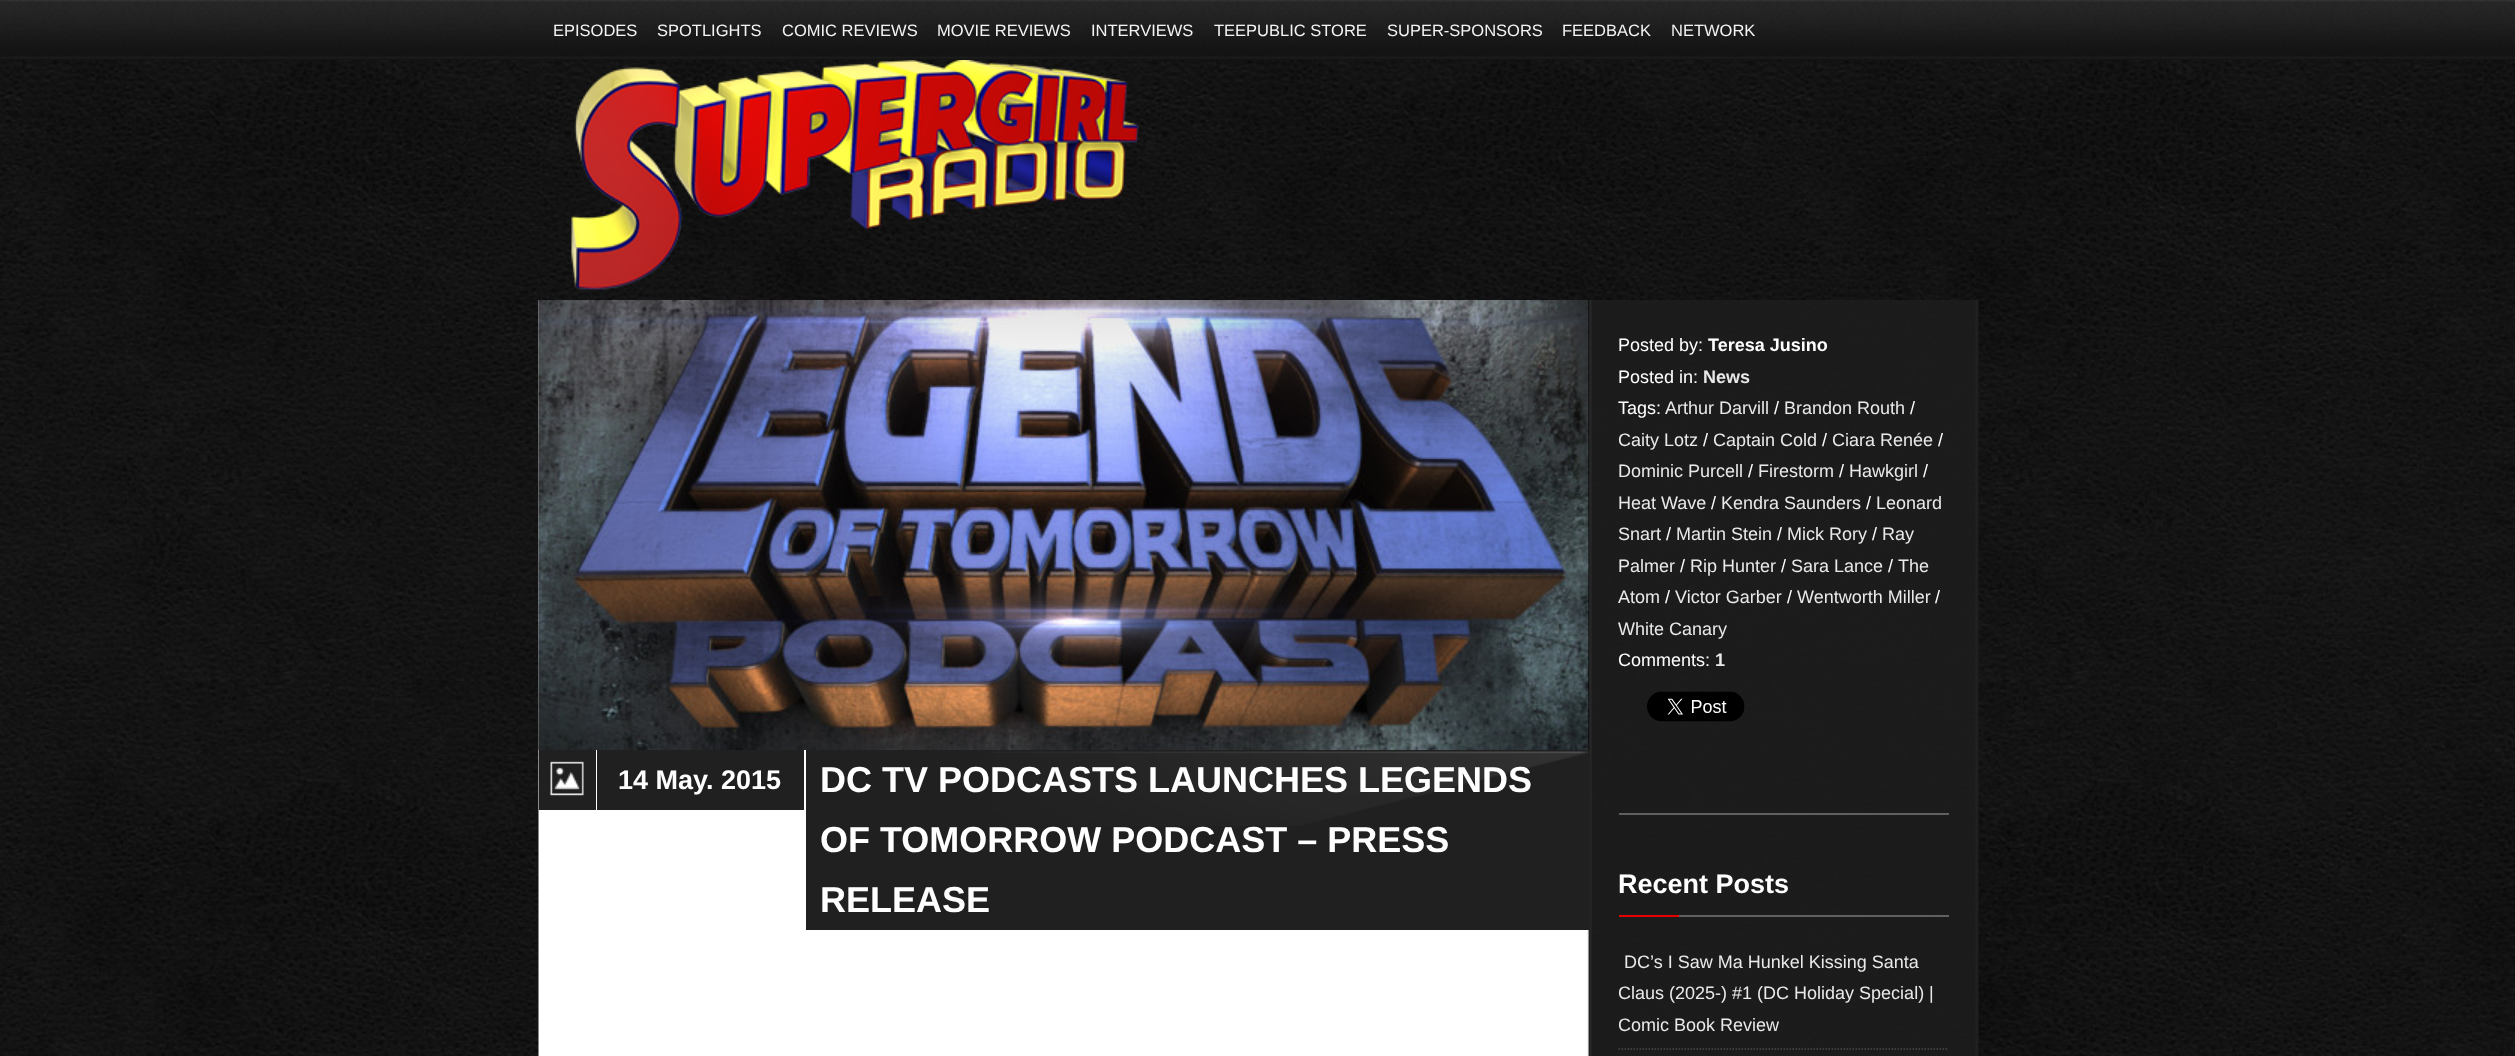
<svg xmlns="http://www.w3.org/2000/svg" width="2515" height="1056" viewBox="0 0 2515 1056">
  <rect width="100%" height="100%" fill="#ffffff"/>
  <image x="0" y="60" width="2515" height="996" href="img1.png"/>
  <image x="0" y="0" width="2515" height="60" href="img2.png"/>
  <text x="553" y="36" font-family="Liberation Sans" font-size="16.5" fill="#f4f4f4">EPISODES</text>
  <text x="657" y="36" font-family="Liberation Sans" font-size="16.5" fill="#f4f4f4">SPOTLIGHTS</text>
  <text x="782" y="36" font-family="Liberation Sans" font-size="16.5" fill="#f4f4f4">COMIC REVIEWS</text>
  <text x="937" y="36" font-family="Liberation Sans" font-size="16.5" fill="#f4f4f4">MOVIE REVIEWS</text>
  <text x="1091" y="36" font-family="Liberation Sans" font-size="16.5" fill="#f4f4f4">INTERVIEWS</text>
  <text x="1214" y="36" font-family="Liberation Sans" font-size="16.5" fill="#f4f4f4">TEEPUBLIC STORE</text>
  <text x="1387" y="36" font-family="Liberation Sans" font-size="16.5" fill="#f4f4f4">SUPER-SPONSORS</text>
  <text x="1562" y="36" font-family="Liberation Sans" font-size="16.5" fill="#f4f4f4">FEEDBACK</text>
  <text x="1671" y="36" font-family="Liberation Sans" font-size="16.5" fill="#f4f4f4">NETWORK</text>
  <image x="571" y="60" width="568" height="230" href="img3.png"/>
  <image x="538" y="300" width="1441" height="756" href="img4.png"/>
  <rect x="1588" y="300" width="1" height="450" fill="#000000"/>
  <image x="538" y="300" width="1051" height="450" href="img5.png"/>
  <rect x="539" y="750" width="57" height="60" fill="#202020"/>
  <image x="549" y="761" width="35" height="35" href="img6.png"/>
  <rect x="597" y="750" width="207" height="60" fill="#202020"/>
  <text x="618" y="789" font-family="Liberation Sans" font-size="27" font-weight="bold" fill="#ffffff">14 May. 2015</text>
  <rect x="806" y="750" width="783" height="180" fill="#202020"/>
  <image x="991" y="751" width="598" height="75" href="img7.png"/>
  <text x="820" y="792" font-family="Liberation Sans" font-size="36" font-weight="bold" fill="#ffffff">DC TV PODCASTS LAUNCHES LEGENDS</text>
  <text x="820" y="852" font-family="Liberation Sans" font-size="36" font-weight="bold" fill="#ffffff">OF TOMORROW PODCAST – PRESS</text>
  <text x="820" y="912" font-family="Liberation Sans" font-size="36" font-weight="bold" fill="#ffffff">RELEASE</text>
  <text x="1618" y="351" font-family="Liberation Sans" font-size="18" fill="#ffffff">Posted by:</text>
  <text x="1708" y="351" font-family="Liberation Sans" font-size="18" font-weight="bold" fill="#ffffff">Teresa Jusino</text>
  <text x="1618" y="383" font-family="Liberation Sans" font-size="18" fill="#ffffff">Posted in:</text>
  <text x="1703" y="383" font-family="Liberation Sans" font-size="18" font-weight="bold" fill="#e9e9e9">News</text>
  <text x="1618" y="414" font-family="Liberation Sans" font-size="18" fill="#ffffff">Tags:</text>
  <text x="1665" y="414" font-family="Liberation Sans" font-size="18" fill="#e9e9e9">Arthur Darvill</text>
  <text x="1774" y="414" font-family="Liberation Sans" font-size="18" fill="#ffffff">/</text>
  <text x="1784" y="414" font-family="Liberation Sans" font-size="18" fill="#e9e9e9">Brandon Routh</text>
  <text x="1910" y="414" font-family="Liberation Sans" font-size="18" fill="#ffffff">/</text>
  <text x="1618" y="446" font-family="Liberation Sans" font-size="18" fill="#e9e9e9">Caity Lotz</text>
  <text x="1703" y="446" font-family="Liberation Sans" font-size="18" fill="#ffffff">/</text>
  <text x="1713" y="446" font-family="Liberation Sans" font-size="18" fill="#e9e9e9">Captain Cold</text>
  <text x="1822" y="446" font-family="Liberation Sans" font-size="18" fill="#ffffff">/</text>
  <text x="1832" y="446" font-family="Liberation Sans" font-size="18" fill="#e9e9e9">Ciara Renée</text>
  <text x="1938" y="446" font-family="Liberation Sans" font-size="18" fill="#ffffff">/</text>
  <text x="1618" y="477" font-family="Liberation Sans" font-size="18" fill="#e9e9e9">Dominic Purcell</text>
  <text x="1748" y="477" font-family="Liberation Sans" font-size="18" fill="#ffffff">/</text>
  <text x="1758" y="477" font-family="Liberation Sans" font-size="18" fill="#e9e9e9">Firestorm</text>
  <text x="1839" y="477" font-family="Liberation Sans" font-size="18" fill="#ffffff">/</text>
  <text x="1849" y="477" font-family="Liberation Sans" font-size="18" fill="#e9e9e9">Hawkgirl</text>
  <text x="1923" y="477" font-family="Liberation Sans" font-size="18" fill="#ffffff">/</text>
  <text x="1618" y="509" font-family="Liberation Sans" font-size="18" fill="#e9e9e9">Heat Wave</text>
  <text x="1711" y="509" font-family="Liberation Sans" font-size="18" fill="#ffffff">/</text>
  <text x="1721" y="509" font-family="Liberation Sans" font-size="18" fill="#e9e9e9">Kendra Saunders</text>
  <text x="1866" y="509" font-family="Liberation Sans" font-size="18" fill="#ffffff">/</text>
  <text x="1876" y="509" font-family="Liberation Sans" font-size="18" fill="#e9e9e9">Leonard</text>
  <text x="1618" y="540" font-family="Liberation Sans" font-size="18" fill="#e9e9e9">Snart</text>
  <text x="1666" y="540" font-family="Liberation Sans" font-size="18" fill="#ffffff">/</text>
  <text x="1676" y="540" font-family="Liberation Sans" font-size="18" fill="#e9e9e9">Martin Stein</text>
  <text x="1777" y="540" font-family="Liberation Sans" font-size="18" fill="#ffffff">/</text>
  <text x="1787" y="540" font-family="Liberation Sans" font-size="18" fill="#e9e9e9">Mick Rory</text>
  <text x="1872" y="540" font-family="Liberation Sans" font-size="18" fill="#ffffff">/</text>
  <text x="1882" y="540" font-family="Liberation Sans" font-size="18" fill="#e9e9e9">Ray</text>
  <text x="1618" y="572" font-family="Liberation Sans" font-size="18" fill="#e9e9e9">Palmer</text>
  <text x="1680" y="572" font-family="Liberation Sans" font-size="18" fill="#ffffff">/</text>
  <text x="1690" y="572" font-family="Liberation Sans" font-size="18" fill="#e9e9e9">Rip Hunter</text>
  <text x="1781" y="572" font-family="Liberation Sans" font-size="18" fill="#ffffff">/</text>
  <text x="1791" y="572" font-family="Liberation Sans" font-size="18" fill="#e9e9e9">Sara Lance</text>
  <text x="1888" y="572" font-family="Liberation Sans" font-size="18" fill="#ffffff">/</text>
  <text x="1898" y="572" font-family="Liberation Sans" font-size="18" fill="#e9e9e9">The</text>
  <text x="1618" y="603" font-family="Liberation Sans" font-size="18" fill="#e9e9e9">Atom</text>
  <text x="1665" y="603" font-family="Liberation Sans" font-size="18" fill="#ffffff">/</text>
  <text x="1675" y="603" font-family="Liberation Sans" font-size="18" fill="#e9e9e9">Victor Garber</text>
  <text x="1787" y="603" font-family="Liberation Sans" font-size="18" fill="#ffffff">/</text>
  <text x="1797" y="603" font-family="Liberation Sans" font-size="18" fill="#e9e9e9">Wentworth Miller</text>
  <text x="1935" y="603" font-family="Liberation Sans" font-size="18" fill="#ffffff">/</text>
  <text x="1618" y="635" font-family="Liberation Sans" font-size="18" fill="#e9e9e9">White Canary</text>
  <text x="1618" y="666" font-family="Liberation Sans" font-size="18" fill="#ffffff">Comments:</text>
  <text x="1715" y="666" font-family="Liberation Sans" font-size="18" font-weight="bold" fill="#e9e9e9">1</text>
  <rect x="1619" y="813" width="330" height="2" fill="#606060"/>
  <image x="1647" y="691" width="98" height="31" href="img8.png"/>
  <text x="1618" y="893" font-family="Liberation Sans" font-size="27" font-weight="bold" fill="#ffffff">Recent Posts</text>
  <rect x="1679" y="915" width="270" height="2" fill="#606060"/>
  <rect x="1619" y="915" width="60" height="2" fill="#e80000"/>
  <path d="M1618.5 1049H1948.5" fill="none" stroke="#494949" stroke-width="1.5" stroke-dasharray="1.5 1.5"/>
  <text x="1624" y="968" font-family="Liberation Sans" font-size="18" fill="#e9e9e9">DC’s I Saw Ma Hunkel Kissing Santa</text>
  <text x="1618" y="999" font-family="Liberation Sans" font-size="18" fill="#e9e9e9">Claus (2025-) #1 (DC Holiday Special) |</text>
  <text x="1618" y="1031" font-family="Liberation Sans" font-size="18" fill="#e9e9e9">Comic Book Review</text>
</svg>
